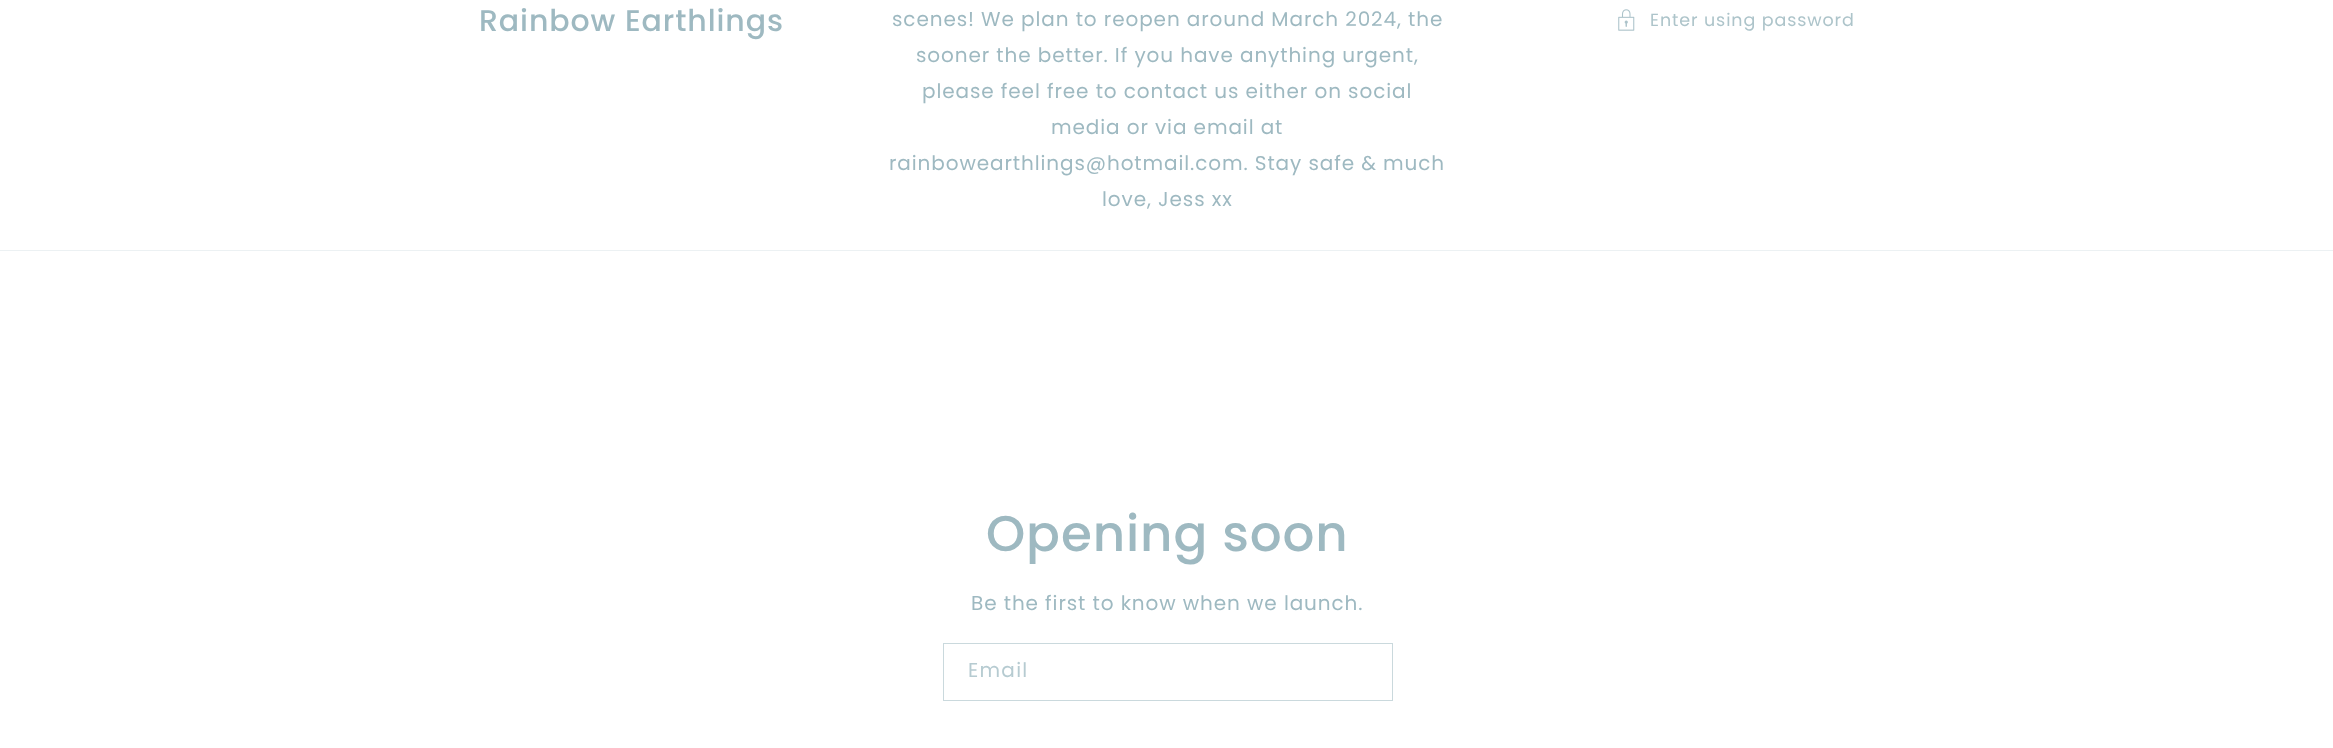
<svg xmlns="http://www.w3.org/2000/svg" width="2333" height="748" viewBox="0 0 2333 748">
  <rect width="100%" height="100%" fill="#ffffff"/>
  <text x="479" y="31" font-family="Poppins" font-size="30" font-weight="500" letter-spacing="0.9" fill="#9eb9c1">Rainbow Earthlings</text>
  <text x="892" y="26" font-family="Poppins" font-size="20" letter-spacing="0.9" fill="#9eb9c1">scenes! We plan to reopen around March 2024, the</text>
  <text x="916" y="62" font-family="Poppins" font-size="20" letter-spacing="0.9" fill="#9eb9c1">sooner the better. If you have anything urgent,</text>
  <text x="922" y="98" font-family="Poppins" font-size="20" letter-spacing="0.9" fill="#9eb9c1">please feel free to contact us either on social</text>
  <text x="1051" y="134" font-family="Poppins" font-size="20" letter-spacing="0.9" fill="#9eb9c1">media or via email at</text>
  <text x="889" y="170" font-family="Poppins" font-size="20" letter-spacing="0.9" fill="#9eb9c1">rainbowearthlings@hotmail.com. Stay safe &amp; much</text>
  <text x="1102" y="206" font-family="Poppins" font-size="20" letter-spacing="0.9" fill="#9eb9c1">love, Jess xx</text>
  <image x="1618" y="9" width="17" height="22" href="img1.png"/>
  <text x="1650" y="26" font-family="Poppins" font-size="17.5" letter-spacing="0.9" fill="#adc4ca">Enter using password</text>
  <rect x="0" y="250" width="2333" height="1" fill="#ecf1f3"/>
  <text x="986" y="551" font-family="Poppins" font-size="50" font-weight="500" letter-spacing="0.9" fill="#9eb9c1">Opening soon</text>
  <text x="971" y="610" font-family="Poppins" font-size="20" letter-spacing="0.9" fill="#9eb9c1">Be the first to know when we launch.</text>
  <rect x="943.5" y="643.5" width="449" height="57" fill="none" stroke="#cad9dd"/>
  <text x="968" y="677" font-family="Poppins" font-size="20" letter-spacing="1.25" fill="#b6cbd1">Email</text>
</svg>
